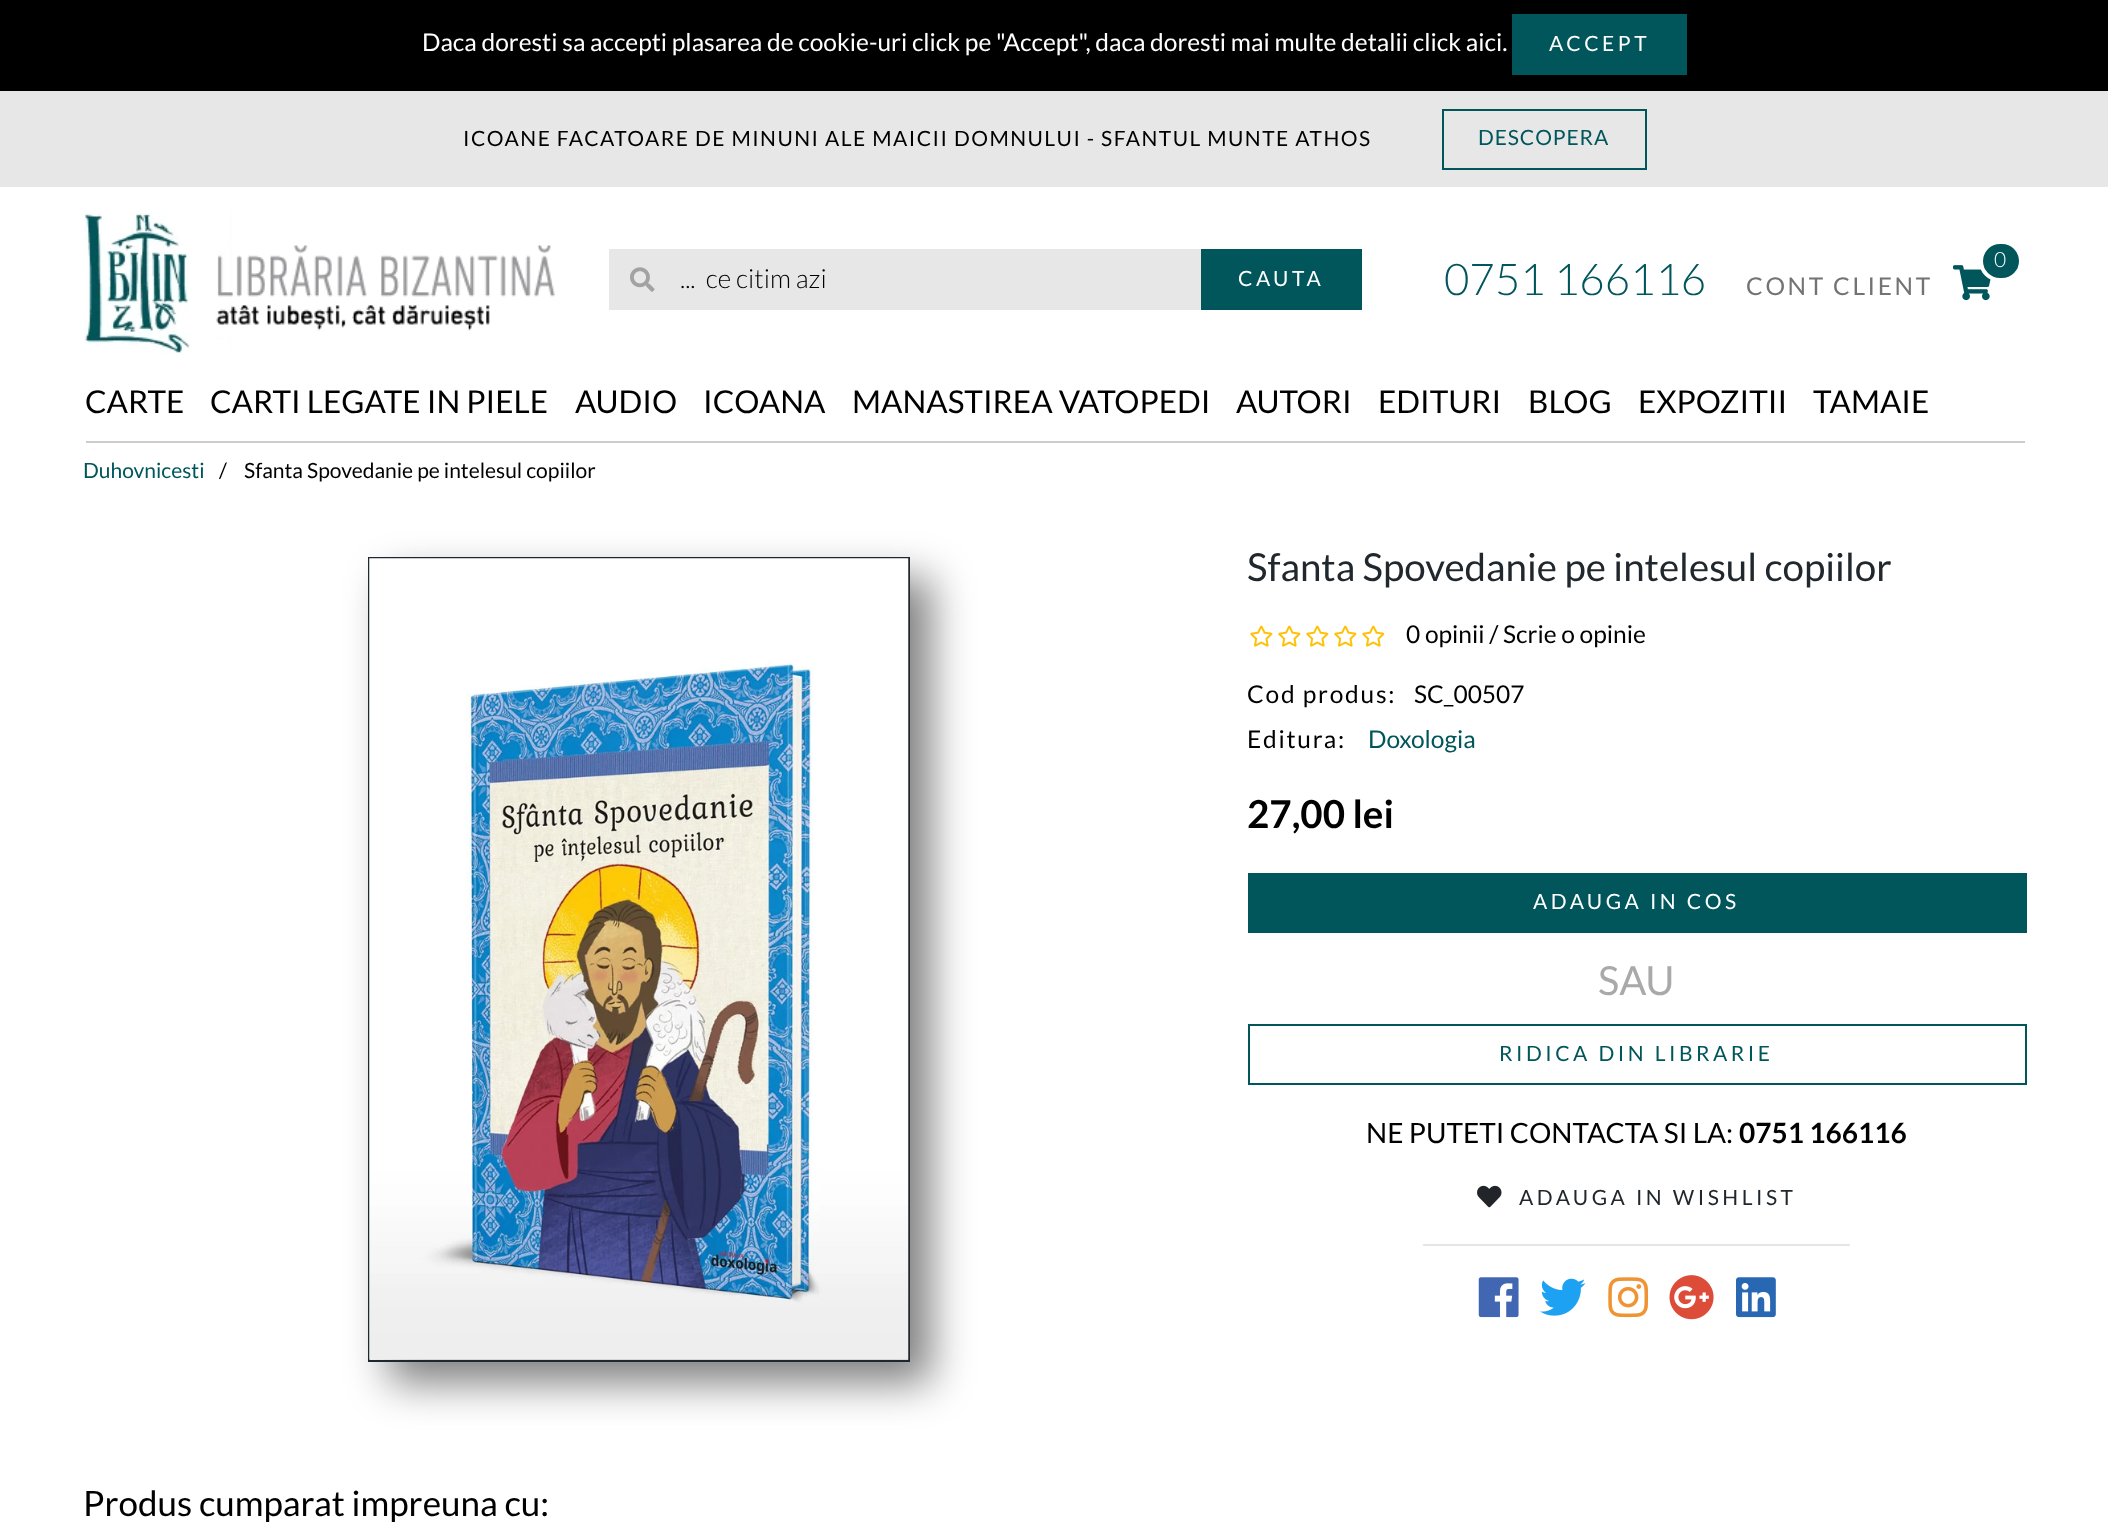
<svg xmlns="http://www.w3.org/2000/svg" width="2108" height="1536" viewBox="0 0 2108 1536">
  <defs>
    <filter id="blur1" x="-50%" y="-200%" width="200%" height="500%"><feGaussianBlur stdDeviation="21"/></filter>
  </defs>
  <rect width="100%" height="100%" fill="#ffffff"/>
  <rect x="0" y="0" width="2108" height="91" fill="#000000"/>
  <text x="422" y="51" font-family="Lato" font-size="24.5" fill="#ffffff">Daca doresti sa accepti plasarea de cookie-uri click pe "Accept", daca doresti mai multe detalii click aici.</text>
  <rect x="1512" y="14" width="175" height="61" fill="#00565b"/>
  <text x="1549" y="51" font-family="Lato" font-size="21" letter-spacing="3.5" fill="#ffffff">ACCEPT</text>
  <rect x="0" y="91" width="2108" height="96" fill="#e7e7e7"/>
  <text x="463" y="146" font-family="Lato" font-size="21" letter-spacing="1.47" fill="#000000">ICOANE FACATOARE DE MINUNI ALE MAICII DOMNULUI - SFANTUL MUNTE ATHOS</text>
  <rect x="1443" y="110" width="203" height="59" fill="none" stroke="#00565b" stroke-width="2"/>
  <text x="1478" y="145" font-family="Lato" font-size="21" letter-spacing="0.9" fill="#00565b">DESCOPERA</text>
  <image x="84" y="211" width="471" height="143" href="img1.png"/>
  <rect x="609" y="249" width="592" height="61" fill="#e7e7e7"/>
  <image x="630" y="267" width="25" height="25" href="img2.png"/>
  <text x="680" y="288" font-family="Lato" font-size="26.25" font-weight="300" fill="#000000" xml:space="preserve">...  ce citim azi</text>
  <rect x="1201" y="249" width="161" height="61" fill="#00565b"/>
  <text x="1238" y="286" font-family="Lato" font-size="21" letter-spacing="3.5" fill="#ffffff">CAUTA</text>
  <image x="1953" y="265" width="38" height="36" href="img3.png"/>
  <rect x="1981" y="242" width="40" height="38" rx="19" fill="#00565b" stroke="#ffffff" stroke-width="4"/>
  <text x="1994" y="267" font-family="Lato" font-size="21" font-weight="300" letter-spacing="2.6" fill="#ffffff">0</text>
  <text x="1444" y="295" font-family="Lato" font-size="43.75" font-weight="300" fill="#00565b">0751 166116</text>
  <text x="1746" y="295" font-family="Lato" font-size="24.5" letter-spacing="2.6" fill="#737373">CONT CLIENT</text>
  <rect x="86" y="441" width="1939" height="2" fill="#cccccc"/>
  <text x="85" y="413" font-family="Lato" font-size="31.5" fill="#000000">CARTE</text>
  <text x="210" y="413" font-family="Lato" font-size="31.5" fill="#000000">CARTI LEGATE IN PIELE</text>
  <text x="575" y="413" font-family="Lato" font-size="31.5" fill="#000000">AUDIO</text>
  <text x="703" y="413" font-family="Lato" font-size="31.5" fill="#000000">ICOANA</text>
  <text x="852" y="413" font-family="Lato" font-size="31.5" fill="#000000">MANASTIREA VATOPEDI</text>
  <text x="1236" y="413" font-family="Lato" font-size="31.5" fill="#000000">AUTORI</text>
  <text x="1378" y="413" font-family="Lato" font-size="31.5" fill="#000000">EDITURI</text>
  <text x="1528" y="413" font-family="Lato" font-size="31.5" fill="#000000">BLOG</text>
  <text x="1638" y="413" font-family="Lato" font-size="31.5" fill="#000000">EXPOZITII</text>
  <text x="1813" y="413" font-family="Lato" font-size="31.5" fill="#000000">TAMAIE</text>
  <text x="83" y="478" font-family="Lato" font-size="21" fill="#00565b">Duhovnicesti</text>
  <text x="219" y="478" font-family="Lato" font-size="21" fill="#000000">/</text>
  <text x="244" y="478" font-family="Lato" font-size="21" fill="#000000">Sfanta Spovedanie pe intelesul copiilor</text>
  <rect x="389" y="578" width="542" height="805" fill="#000000" fill-opacity="0.5" filter="url(#blur1)"/>
  <rect x="369" y="558" width="540" height="803" fill="none" stroke="#21282d" stroke-width="2"/>
  <image x="369" y="558" width="540" height="802" href="img4.png"/>
  <text x="1247" y="581" font-family="Lato" font-size="38.5" fill="#21282d">Sfanta Spovedanie pe intelesul copiilor</text>
  <image x="1250" y="625" width="23" height="22" href="img5.png"/>
  <image x="1278" y="625" width="23" height="22" href="img5.png"/>
  <image x="1306" y="625" width="23" height="22" href="img5.png"/>
  <image x="1334" y="625" width="23" height="22" href="img5.png"/>
  <image x="1362" y="625" width="23" height="22" href="img5.png"/>
  <text x="1406" y="643" font-family="Lato" font-size="24.5" fill="#000000">0 opinii / Scrie o opinie</text>
  <text x="1247" y="703" font-family="Lato" font-size="24.5" letter-spacing="1.75" fill="#000000">Cod produs:</text>
  <text x="1414" y="703" font-family="Lato" font-size="24.5" fill="#000000">SC_00507</text>
  <text x="1247" y="748" font-family="Lato" font-size="24.5" letter-spacing="1.75" fill="#000000">Editura:</text>
  <text x="1368" y="748" font-family="Lato" font-size="24.5" fill="#00565b">Doxologia</text>
  <text x="1247" y="828" font-family="Lato" font-size="38.5" font-weight="bold" fill="#000000">27,00 lei</text>
  <rect x="1248" y="873" width="779" height="60" fill="#00565b"/>
  <text x="1533" y="909" font-family="Lato" font-size="21" letter-spacing="3.5" fill="#ffffff">ADAUGA IN COS</text>
  <text x="1598" y="995" font-family="Lato" font-size="40" fill="#a9a9a9">SAU</text>
  <rect x="1249" y="1025" width="777" height="59" fill="none" stroke="#00565b" stroke-width="2"/>
  <text x="1499" y="1061" font-family="Lato" font-size="21" letter-spacing="3.5" fill="#00565b">RIDICA DIN LIBRARIE</text>
  <text x="1366" y="1143" font-family="Lato" font-size="28" fill="#000000">NE PUTETI CONTACTA SI LA:</text>
  <text x="1739" y="1143" font-family="Lato" font-size="28" font-weight="bold" fill="#000000">0751 166116</text>
  <image x="1477" y="1185" width="25" height="23" href="img6.png"/>
  <text x="1519" y="1205" font-family="Lato" font-size="21" letter-spacing="3.5" fill="#21282d">ADAUGA IN WISHLIST</text>
  <rect x="1423" y="1244" width="427" height="2" fill="#e6e6e6"/>
  <image x="1478" y="1277" width="41" height="41" href="img7.png"/>
  <image x="1540" y="1278" width="46" height="38" href="img8.png"/>
  <image x="1608" y="1277" width="41" height="41" href="img9.png"/>
  <image x="1669" y="1275" width="45" height="45" href="img10.png"/>
  <image x="1736" y="1277" width="40" height="41" href="img11.png"/>
  <text x="83" y="1516" font-family="Lato" font-size="35" fill="#000000">Produs cumparat impreuna cu:</text>
</svg>
